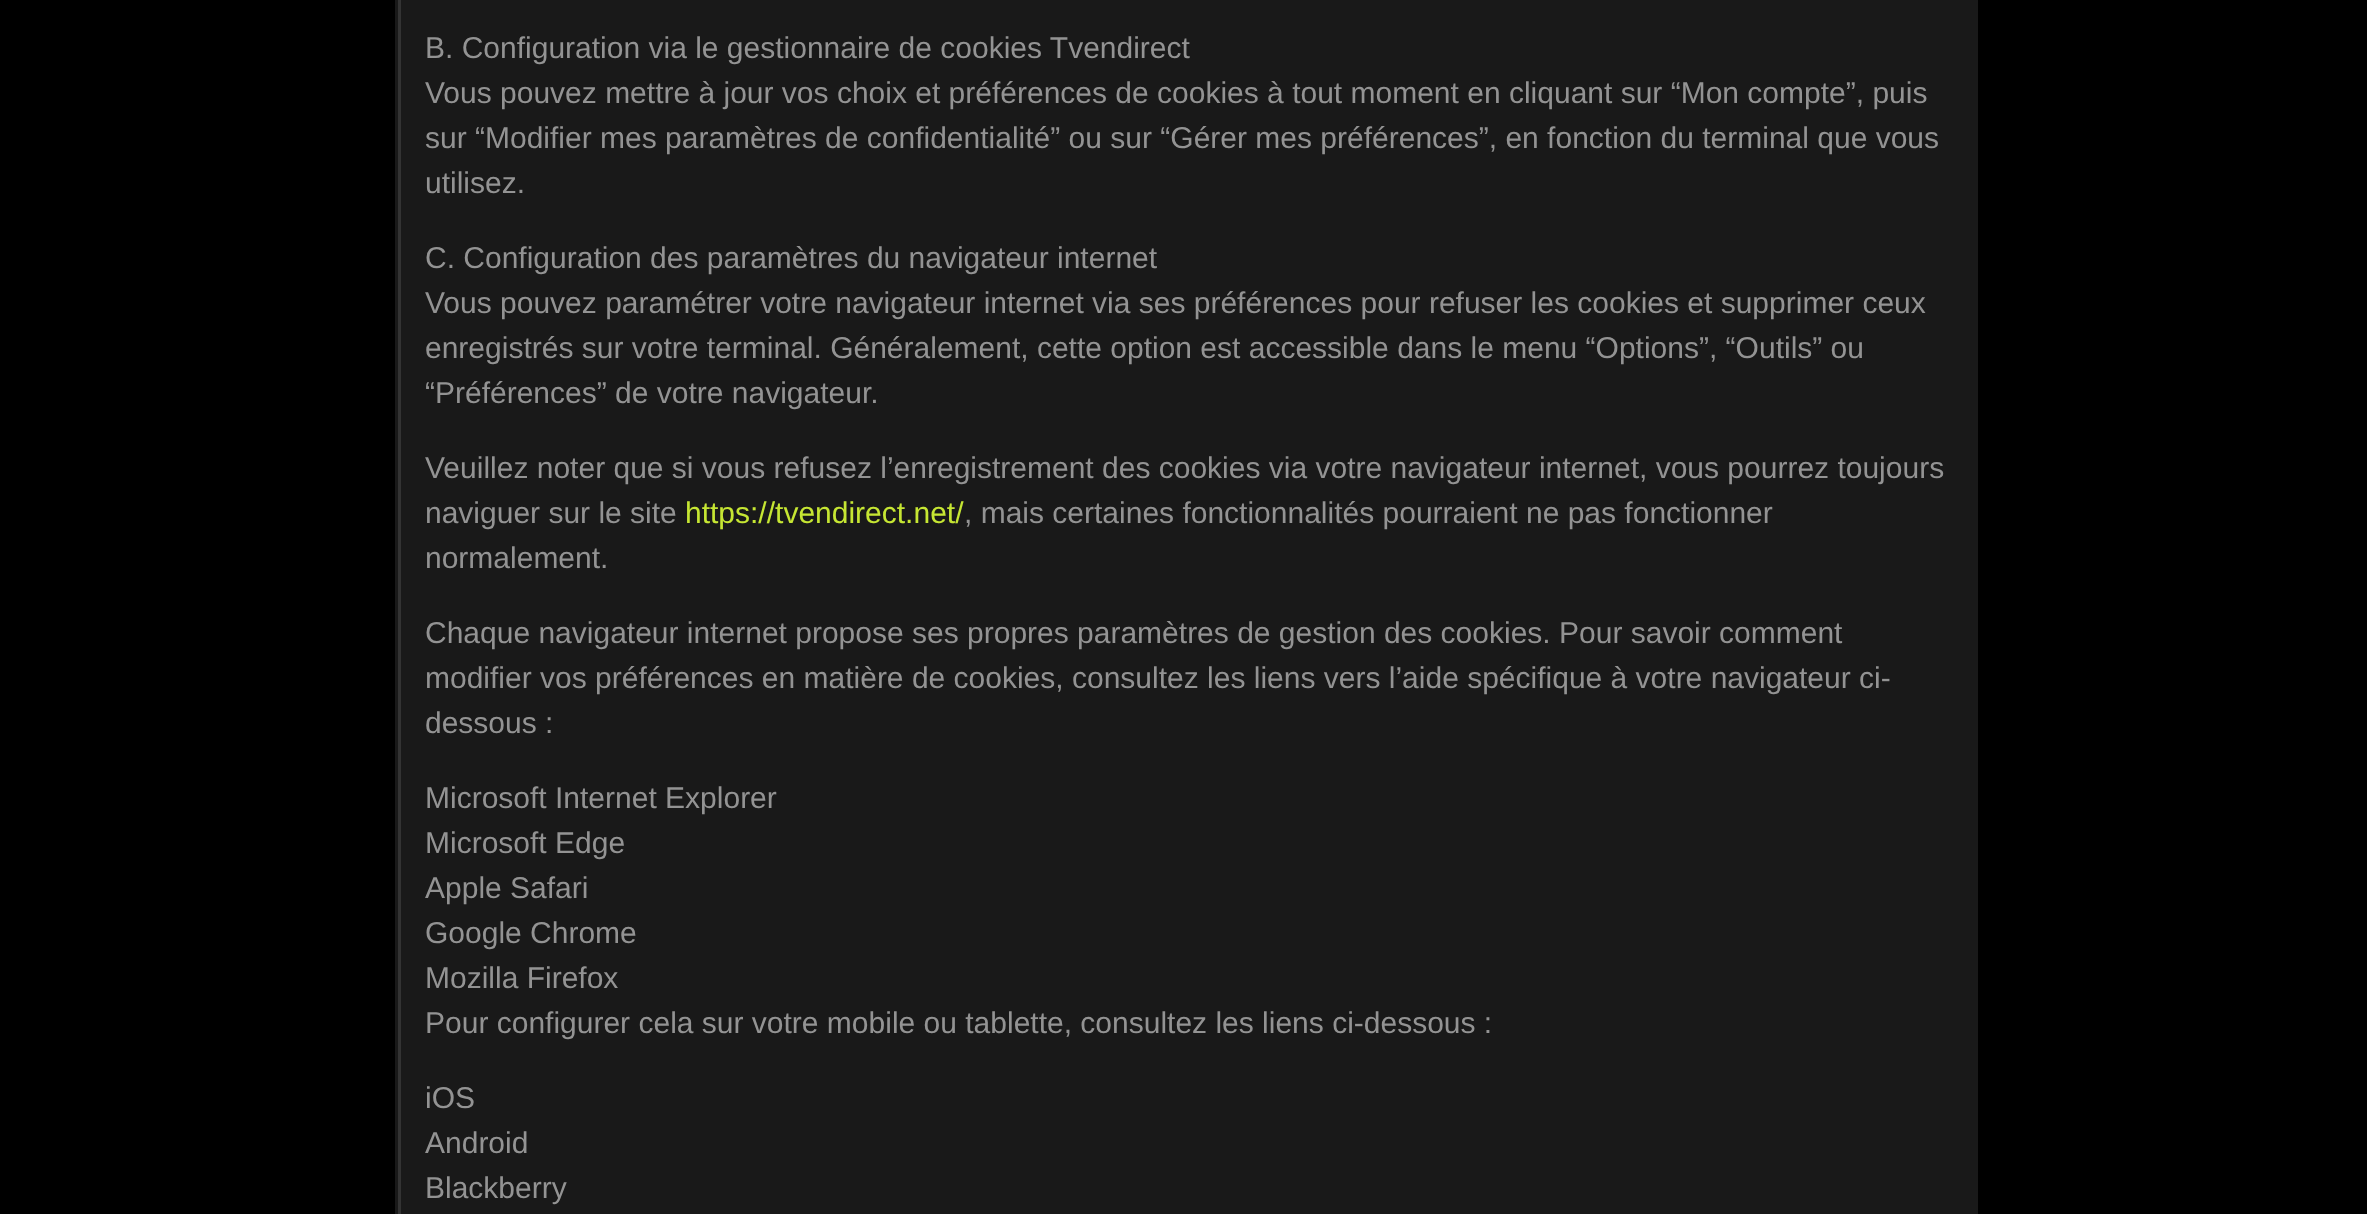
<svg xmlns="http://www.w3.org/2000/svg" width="2367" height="1214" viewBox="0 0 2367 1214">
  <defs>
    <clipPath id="clip1"><rect x="398" y="0" width="1577" height="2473"/></clipPath>
  </defs>
  <rect width="100%" height="100%" fill="#000000"/>
  <rect x="396.5" y="-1.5" width="1580" height="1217" fill="none" stroke="#191919" stroke-width="3"/>
  <rect x="401" y="0" width="1574" height="1214" fill="#191919"/>
  <g clip-path="url(#clip1)">
    <rect x="399.5" y="-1.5" width="1579" height="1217" fill="none" stroke="#333333" stroke-width="3"/>
  </g>
  <text x="425" y="58" font-family="Liberation Sans" font-size="30" fill="#939393">B. Configuration via le gestionnaire de cookies Tvendirect</text>
  <text x="425" y="103" font-family="Liberation Sans" font-size="30" fill="#939393">Vous pouvez mettre à jour vos choix et préférences de cookies à tout moment en cliquant sur “Mon compte”, puis</text>
  <text x="425" y="148" font-family="Liberation Sans" font-size="30" fill="#939393">sur “Modifier mes paramètres de confidentialité” ou sur “Gérer mes préférences”, en fonction du terminal que vous</text>
  <text x="425" y="193" font-family="Liberation Sans" font-size="30" fill="#939393">utilisez.</text>
  <text x="425" y="268" font-family="Liberation Sans" font-size="30" fill="#939393">C. Configuration des paramètres du navigateur internet</text>
  <text x="425" y="313" font-family="Liberation Sans" font-size="30" fill="#939393">Vous pouvez paramétrer votre navigateur internet via ses préférences pour refuser les cookies et supprimer ceux</text>
  <text x="425" y="358" font-family="Liberation Sans" font-size="30" fill="#939393">enregistrés sur votre terminal. Généralement, cette option est accessible dans le menu “Options”, “Outils” ou</text>
  <text x="425" y="403" font-family="Liberation Sans" font-size="30" fill="#939393">“Préférences” de votre navigateur.</text>
  <text x="425" y="478" font-family="Liberation Sans" font-size="30" fill="#939393">Veuillez noter que si vous refusez l’enregistrement des cookies via votre navigateur internet, vous pourrez toujours</text>
  <text x="425" y="523" font-family="Liberation Sans" font-size="30" fill="#939393">naviguer sur le site</text>
  <text x="685" y="523" font-family="Liberation Sans" font-size="30" fill="#c6e633">https://tvendirect.net/</text>
  <text x="964" y="523" font-family="Liberation Sans" font-size="30" fill="#939393">, mais certaines fonctionnalités pourraient ne pas fonctionner</text>
  <text x="425" y="568" font-family="Liberation Sans" font-size="30" fill="#939393">normalement.</text>
  <text x="425" y="643" font-family="Liberation Sans" font-size="30" fill="#939393">Chaque navigateur internet propose ses propres paramètres de gestion des cookies. Pour savoir comment</text>
  <text x="425" y="688" font-family="Liberation Sans" font-size="30" fill="#939393">modifier vos préférences en matière de cookies, consultez les liens vers l’aide spécifique à votre navigateur ci-</text>
  <text x="425" y="733" font-family="Liberation Sans" font-size="30" fill="#939393">dessous :</text>
  <text x="425" y="808" font-family="Liberation Sans" font-size="30" fill="#939393">Microsoft Internet Explorer</text>
  <text x="425" y="853" font-family="Liberation Sans" font-size="30" fill="#939393">Microsoft Edge</text>
  <text x="425" y="898" font-family="Liberation Sans" font-size="30" fill="#939393">Apple Safari</text>
  <text x="425" y="943" font-family="Liberation Sans" font-size="30" fill="#939393">Google Chrome</text>
  <text x="425" y="988" font-family="Liberation Sans" font-size="30" fill="#939393">Mozilla Firefox</text>
  <text x="425" y="1033" font-family="Liberation Sans" font-size="30" fill="#939393">Pour configurer cela sur votre mobile ou tablette, consultez les liens ci-dessous :</text>
  <text x="425" y="1108" font-family="Liberation Sans" font-size="30" fill="#939393">iOS</text>
  <text x="425" y="1153" font-family="Liberation Sans" font-size="30" fill="#939393">Android</text>
  <text x="425" y="1198" font-family="Liberation Sans" font-size="30" fill="#939393">Blackberry</text>
</svg>
